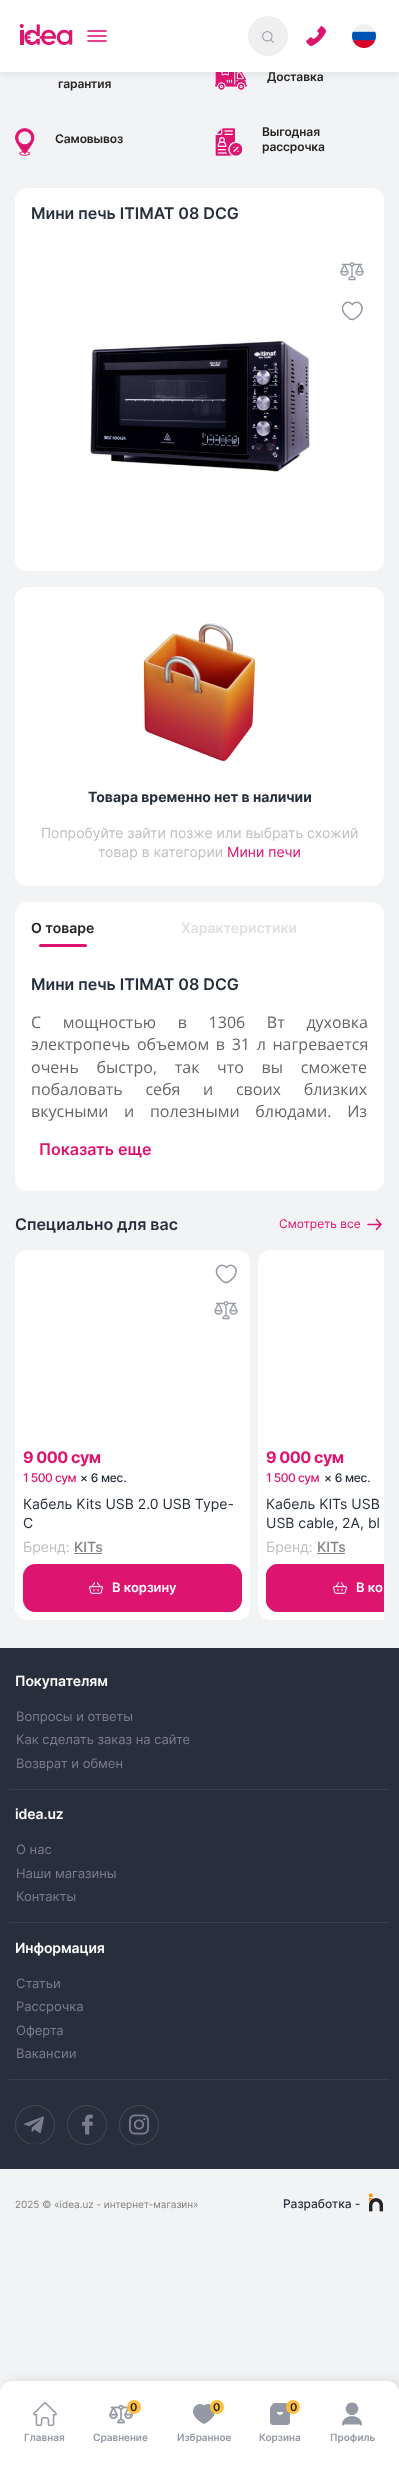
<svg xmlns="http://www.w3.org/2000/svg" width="399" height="2465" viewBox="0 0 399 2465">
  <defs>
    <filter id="blur1" x="-50%" y="-200%" width="200%" height="500%"><feGaussianBlur stdDeviation="3"/></filter>
    <clipPath id="clip1"><rect x="15" y="1250" width="369" height="370"/></clipPath>
    <filter id="blur2" x="-50%" y="-200%" width="200%" height="500%"><feGaussianBlur stdDeviation="6"/></filter>
  </defs>
  <rect width="100%" height="100%" fill="#f2f3f5"/>
  <image x="215" y="72" width="32" height="18" href="img6.png"/>
  <rect x="0" y="2" width="399" height="72" fill="#171717" fill-opacity="0.08" filter="url(#blur1)"/>
  <rect x="0" y="0" width="399" height="72" fill="#ffffff"/>
  <image x="19" y="24" width="54" height="21" href="img1.png"/>
  <image x="87" y="30" width="20" height="12" href="img2.png"/>
  <circle cx="268" cy="36" r="20" fill="#efefef"/>
  <image x="262" y="31" width="12" height="12" href="img3.png"/>
  <image x="306" y="26" width="20" height="20" href="img4.png"/>
  <image x="352" y="24" width="24" height="24" href="img5.png"/>
  <text x="267" y="81" font-family="Inter" font-size="12" font-weight="600" letter-spacing="-0.1" fill="#242424">Доставка</text>
  <text x="58" y="88" font-family="Inter" font-size="12" font-weight="600" letter-spacing="-0.1" fill="#242424">гарантия</text>
  <image x="15" y="128" width="20" height="28" href="img7.png"/>
  <text x="55" y="143" font-family="Inter" font-size="12" font-weight="600" letter-spacing="-0.1" fill="#242424">Самовывоз</text>
  <image x="215" y="128" width="27" height="28" href="img8.png"/>
  <text x="262" y="136" font-family="Inter" font-size="12" font-weight="600" letter-spacing="-0.1" fill="#242424">Выгодная</text>
  <text x="262" y="151" font-family="Inter" font-size="12" font-weight="600" letter-spacing="-0.1" fill="#242424">рассрочка</text>
  <rect x="15" y="188" width="369" height="383" rx="12" fill="#ffffff"/>
  <text x="31" y="219" font-family="Inter" font-size="16" font-weight="600" fill="#282f3c">Мини печь ITIMAT 08 DCG</text>
  <image x="340" y="262" width="24" height="19" href="img9.png"/>
  <path d="M353 319.5C351 320 348.5 318 347.5 317C336 308 347 297.5 352.5 304.5C357 298.5 366 305.5 360 314C358 316.5 355.5 318.5 353 319.5Z" fill="none" stroke="#9499a5" stroke-width="1.5" stroke-linecap="round" stroke-linejoin="round"/>
  <image x="89" y="340" width="222" height="132" href="img10.png"/>
  <rect x="15" y="587" width="369" height="299" rx="12" fill="#ffffff"/>
  <image x="143" y="623" width="113" height="139" href="img11.png"/>
  <text x="88" y="802" font-family="Inter" font-size="14" font-weight="bold" fill="#282f3c">Товара временно нет в наличии</text>
  <text x="41" y="838" font-family="Inter" font-size="14" fill="#c0c0c0">Попробуйте зайти позже или выбрать схожий</text>
  <text x="98" y="857" font-family="Inter" font-size="14" fill="#c0c0c0">товар в категории</text>
  <text x="227" y="857" font-family="Inter" font-size="14" fill="#dd1470">Мини печи</text>
  <rect x="15" y="902" width="369" height="289" rx="12" fill="#ffffff"/>
  <text x="31" y="933" font-family="Inter" font-size="14" font-weight="600" fill="#242424">О товаре</text>
  <rect x="39" y="944" width="48" height="3" rx="1.5" fill="#dd1470"/>
  <text x="181" y="933" font-family="Inter" font-size="14" font-weight="600" fill="#e0e0e0">Характеристики</text>
  <text x="31" y="990" font-family="Inter" font-size="16" font-weight="600" fill="#282f3c">Мини печь ITIMAT 08 DCG</text>
  <text x="31" y="1028" word-spacing="17.5" font-family="Open Sans" font-size="16" fill="#666666">С мощностью в 1306 Вт духовка</text>
  <text x="31" y="1050" word-spacing="2.5" font-family="Open Sans" font-size="16" fill="#666666">электропечь объемом в 31 л нагревается</text>
  <text x="31" y="1073" word-spacing="13.5" font-family="Open Sans" font-size="16" fill="#666666">очень быстро, так что вы сможете</text>
  <text x="31" y="1095" word-spacing="18.5" font-family="Open Sans" font-size="16" fill="#666666">побаловать себя и своих близких</text>
  <text x="31" y="1117" word-spacing="11.5" font-family="Open Sans" font-size="16" fill="#666666">вкусными и полезными блюдами. Из</text>
  <text x="39" y="1155" font-family="Inter" font-size="16" font-weight="600" fill="#dd1470">Показать еще</text>
  <text x="15" y="1230" font-family="Inter" font-size="16" font-weight="600" fill="#282f3c">Специально для вас</text>
  <text x="279" y="1228" font-family="Inter" font-size="12" fill="#dd1470">Смотреть все</text>
  <path d="M376.5 1219.5L381 1224.5L376.5 1229.5M368 1224.5H381" fill="none" stroke="#dd1470" stroke-width="1.5" stroke-linecap="round" stroke-linejoin="round"/>
  <rect x="15" y="1250" width="235" height="370" rx="12" fill="#ffffff"/>
  <path d="M227 1282.5C225 1283 222.5 1281 221.5 1280C210 1271 221 1260.5 226.5 1267.5C231 1261.5 240 1268.5 234 1277C232 1279.5 229.5 1281.5 227 1282.5Z" fill="none" stroke="#9499a5" stroke-width="1.5" stroke-linecap="round" stroke-linejoin="round"/>
  <image x="214" y="1301" width="24" height="19" href="img9.png"/>
  <text x="23" y="1463" font-family="Inter" font-size="16" font-weight="bold" letter-spacing="-0.5" fill="#dd1470">9 000 сум</text>
  <text x="23" y="1482" font-family="Inter" font-size="12" font-weight="500" letter-spacing="-0.5" fill="#dd1470">1 500 сум</text>
  <text x="80" y="1482" font-family="Inter" font-size="12" font-weight="500" letter-spacing="-0.25" fill="#282f3c">× 6 мес.</text>
  <text x="23" y="1509" font-family="Inter" font-size="14" fill="#282f3c">Кабель Kits USB 2.0 USB Type-</text>
  <text x="23" y="1528" font-family="Inter" font-size="14" fill="#282f3c">C</text>
  <text x="23" y="1552" font-family="Inter" font-size="14" fill="#c0c0c0">Бренд:</text>
  <text x="74" y="1552" font-family="Inter" font-size="14" font-weight="500" fill="#828282">KITs</text>
  <rect x="74" y="1553" width="28" height="1" fill="#828282"/>
  <rect x="23.5" y="1564.5" width="218" height="47" rx="11.5" fill="#dd1470" stroke="#dd1470"/>
  <image x="89" y="1582" width="14" height="12" href="img12.png"/>
  <text x="112" y="1592" font-family="Inter" font-size="13" font-weight="600" fill="#ffffff">В корзину</text>
  <path d="M270 1250H384V1620H270C263.5 1620 258 1614.5 258 1608V1262C258 1255.5 263.5 1250 270 1250Z" fill="#ffffff"/>
  <text x="266" y="1463" font-family="Inter" font-size="16" font-weight="bold" letter-spacing="-0.5" fill="#dd1470">9 000 сум</text>
  <text x="266" y="1482" font-family="Inter" font-size="12" font-weight="500" letter-spacing="-0.5" fill="#dd1470">1 500 сум</text>
  <text x="324" y="1482" font-family="Inter" font-size="12" font-weight="500" letter-spacing="-0.25" fill="#282f3c">× 6 мес.</text>
  <text x="266" y="1509" font-family="Inter" font-size="14" fill="#282f3c">Кабель KITs USB</text>
  <text x="266" y="1528" font-family="Inter" font-size="14" fill="#282f3c">USB cable, 2A, bl</text>
  <text x="266" y="1552" font-family="Inter" font-size="14" fill="#c0c0c0">Бренд:</text>
  <text x="317" y="1552" font-family="Inter" font-size="14" font-weight="500" fill="#828282">KITs</text>
  <rect x="317" y="1553" width="28" height="1" fill="#828282"/>
  <path d="M278 1564H384V1612H278C271.5 1612 266 1606.5 266 1600V1576C266 1569.5 271.5 1564 278 1564Z" fill="#dd1470"/>
  <g clip-path="url(#clip1)">
    <rect x="266.5" y="1564.5" width="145" height="47" rx="11.5" fill="none" stroke="#dd1470"/>
  </g>
  <image x="333" y="1582" width="14" height="12" href="img12.png"/>
  <text x="356" y="1592" font-family="Inter" font-size="13" font-weight="600" fill="#ffffff">В ко</text>
  <rect x="0" y="1648" width="399" height="521" fill="#282f3c"/>
  <rect x="9" y="1789" width="381" height="1" fill="#383f4b"/>
  <text x="15" y="1686" font-family="Inter" font-size="14" font-weight="600" letter-spacing="-0.1" fill="#ffffff">Покупателям</text>
  <text x="16" y="1721" font-family="Inter" font-size="13" fill="#7a7d8c">Вопросы и ответы</text>
  <text x="16" y="1744" font-family="Inter" font-size="13" fill="#7a7d8c">Как сделать заказ на сайте</text>
  <text x="16" y="1768" font-family="Inter" font-size="13" fill="#7a7d8c">Возврат и обмен</text>
  <rect x="9" y="1922" width="381" height="1" fill="#383f4b"/>
  <text x="15" y="1819" font-family="Inter" font-size="14" font-weight="600" letter-spacing="-0.1" fill="#ffffff">idea.uz</text>
  <text x="16" y="1854" font-family="Inter" font-size="13" fill="#7a7d8c">О нас</text>
  <text x="16" y="1878" font-family="Inter" font-size="13" fill="#7a7d8c">Наши магазины</text>
  <text x="16" y="1901" font-family="Inter" font-size="13" fill="#7a7d8c">Контакты</text>
  <rect x="9" y="2079" width="381" height="1" fill="#383f4b"/>
  <text x="15" y="1953" font-family="Inter" font-size="14" font-weight="600" letter-spacing="-0.1" fill="#ffffff">Информация</text>
  <text x="16" y="1988" font-family="Inter" font-size="13" fill="#7a7d8c">Статьи</text>
  <text x="16" y="2011" font-family="Inter" font-size="13" fill="#7a7d8c">Рассрочка</text>
  <text x="16" y="2035" font-family="Inter" font-size="13" fill="#7a7d8c">Оферта</text>
  <text x="16" y="2058" font-family="Inter" font-size="13" fill="#7a7d8c">Вакансии</text>
  <image x="15" y="2105" width="40" height="39" href="img13.png"/>
  <image x="67" y="2105" width="40" height="40" href="img14.png"/>
  <image x="119" y="2105" width="40" height="40" href="img15.png"/>
  <text x="15" y="2208" font-family="Inter" font-size="10" fill="#828282">2025 © «idea.uz - интернет-магазин»</text>
  <text x="283" y="2208" font-family="Inter" font-size="12" font-weight="500" fill="#282f3c">Разработка -</text>
  <image x="368" y="2193" width="16" height="19" href="img16.png"/>
  <rect x="4" y="2381" width="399" height="84" rx="12" fill="#000000" fill-opacity="0.1" filter="url(#blur2)"/>
  <path d="M12 2381H387C393.5 2381 399 2386.5 399 2393V2465H0V2393C0 2386.5 5.5 2381 12 2381Z" fill="#ffffff"/>
  <image x="33" y="2402" width="24" height="24" href="img17.png"/>
  <text x="24" y="2441" font-family="Inter" font-size="10" font-weight="600" fill="#9499a5">Главная</text>
  <image x="109" y="2404" width="24" height="20" href="img18.png"/>
  <circle cx="134" cy="2407" r="7" fill="#ffbf3c"/>
  <text x="130" y="2411" font-family="Inter" font-size="11" font-weight="600" fill="#242424">0</text>
  <text x="93" y="2441" font-family="Inter" font-size="10" font-weight="600" fill="#9499a5">Сравнение</text>
  <image x="193" y="2404" width="22" height="20" href="img19.png"/>
  <circle cx="217" cy="2407" r="7" fill="#ffbf3c"/>
  <text x="213" y="2411" font-family="Inter" font-size="11" font-weight="600" fill="#242424">0</text>
  <text x="177" y="2441" font-family="Inter" font-size="10" font-weight="600" fill="#9499a5">Избранное</text>
  <image x="270" y="2403" width="20" height="22" href="img20.png"/>
  <circle cx="293" cy="2407" r="7" fill="#ffbf3c"/>
  <text x="290" y="2411" font-family="Inter" font-size="11" font-weight="600" fill="#242424">0</text>
  <text x="259" y="2441" font-family="Inter" font-size="10" font-weight="600" fill="#9499a5">Корзина</text>
  <image x="342" y="2402" width="20" height="24" href="img21.png"/>
  <text x="330" y="2441" font-family="Inter" font-size="10" font-weight="600" fill="#9499a5">Профиль</text>
</svg>
